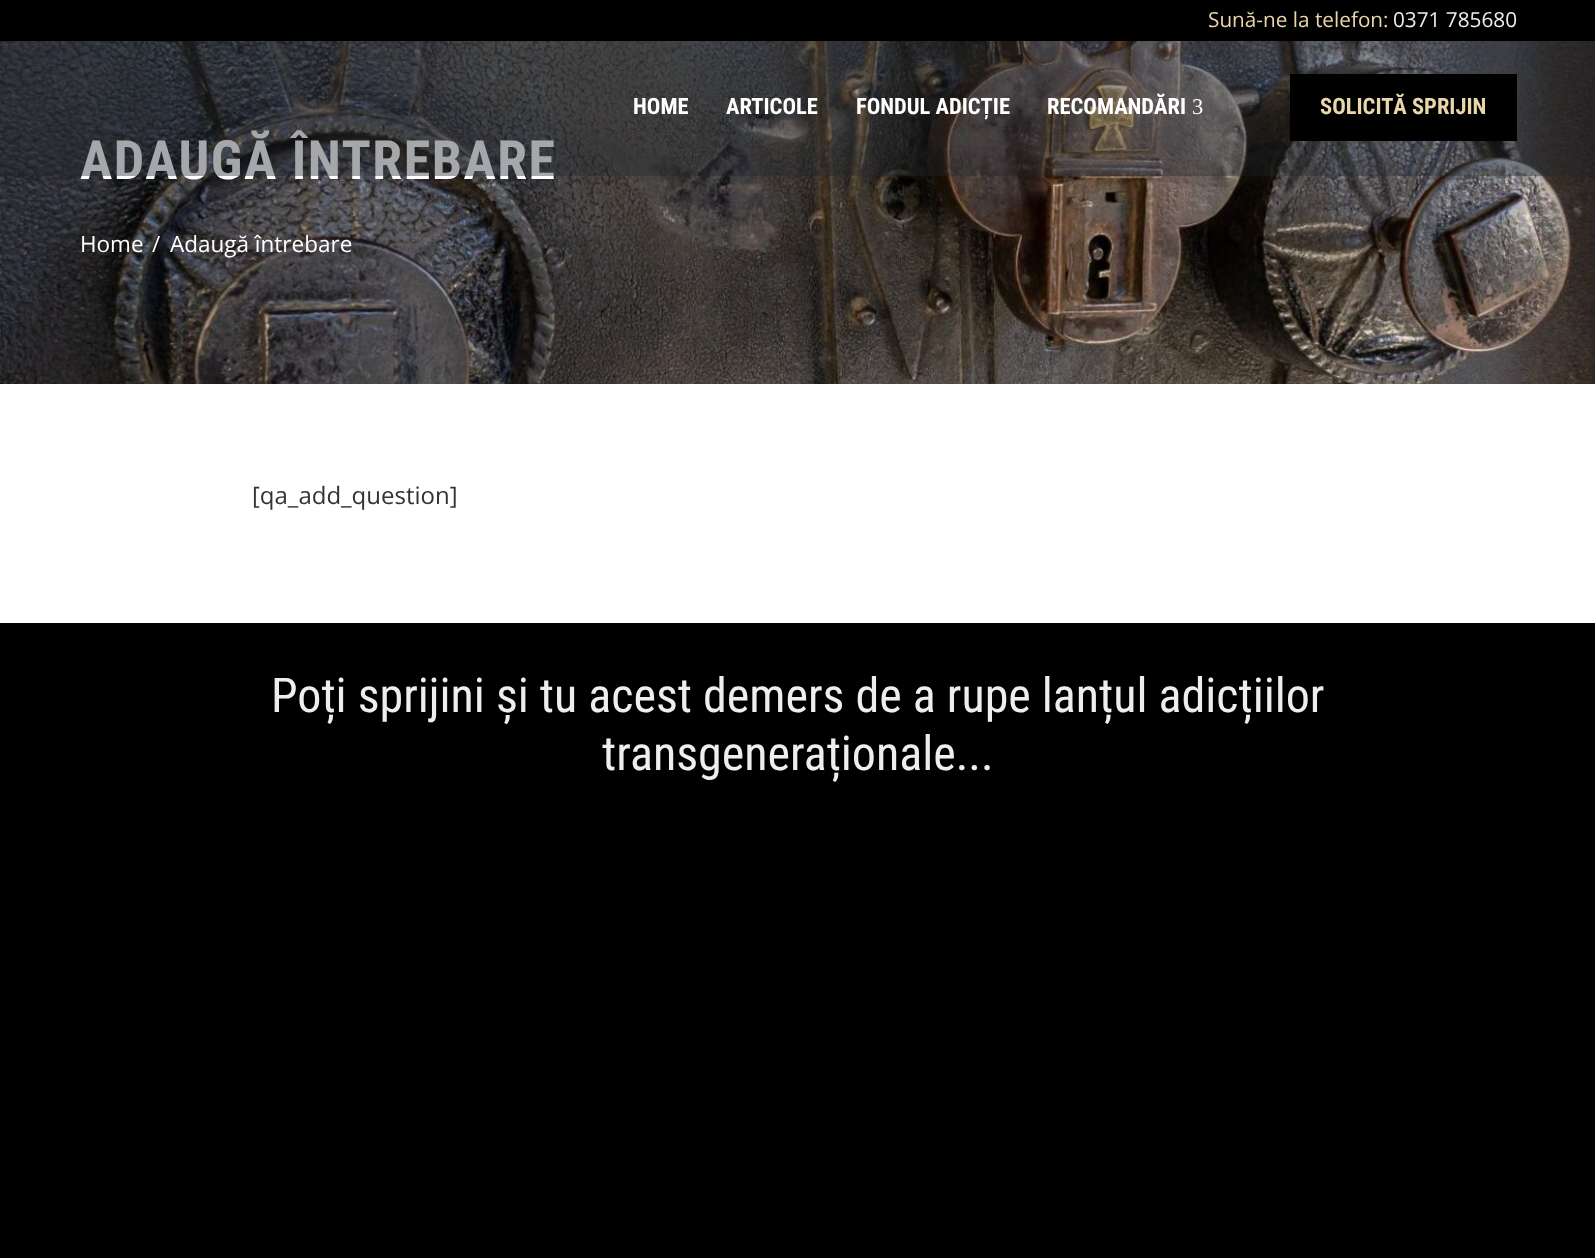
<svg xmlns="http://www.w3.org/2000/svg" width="1595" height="1258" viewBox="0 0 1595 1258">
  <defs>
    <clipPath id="clip1"><path d="M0 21H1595V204H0ZM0 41H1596V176H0Z" clip-rule="evenodd"/></clipPath>
    <filter id="blur1" x="-50%" y="-200%" width="200%" height="500%"><feGaussianBlur stdDeviation="7.5"/></filter>
  </defs>
  <rect width="100%" height="100%" fill="#ffffff"/>
  <rect x="0" y="0" width="1595" height="41" fill="#000000"/>
  <text x="1208" y="27" font-family="Open Sans" font-size="20.75" fill="#e9d7ab">Sună-ne la telefon:</text>
  <text x="1393" y="27" font-family="Open Sans" font-size="20.75" fill="#eeeeee">0371 785680</text>
  <image x="0" y="41" width="1595" height="343" href="img1.png"/>
  <g clip-path="url(#clip1)">
    <rect x="0" y="45" width="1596" height="135" fill="#000000" fill-opacity="0.1" filter="url(#blur1)"/>
  </g>
  <text x="80" y="179" font-family="Roboto Condensed" font-size="54" font-weight="bold" letter-spacing="1.5" fill="#ffffff">ADAUGĂ ÎNTREBARE</text>
  <rect x="0" y="41" width="1595" height="135" fill="#1e242a" fill-opacity="0.4"/>
  <text x="633" y="114" font-family="Roboto Condensed" font-size="22.5" font-weight="bold" fill="#ffffff">HOME</text>
  <text x="726" y="114" font-family="Roboto Condensed" font-size="22.5" font-weight="bold" fill="#ffffff">ARTICOLE</text>
  <text x="856" y="114" font-family="Roboto Condensed" font-size="22.5" font-weight="bold" fill="#ffffff">FONDUL ADICȚIE</text>
  <text x="1047" y="114" font-family="Roboto Condensed" font-size="22.5" font-weight="bold" fill="#ffffff">RECOMANDĂRI</text>
  <text x="1192" y="114" font-family="Liberation Serif" font-size="22.5" fill="#ffffff">3</text>
  <rect x="1290" y="74" width="227" height="67" fill="#000000"/>
  <text x="1320" y="114" font-family="Roboto Condensed" font-size="22.5" font-weight="bold" fill="#e9d7ab">SOLICITĂ SPRIJIN</text>
  <text x="80" y="252" font-family="Open Sans" font-size="22.5" fill="#ffffff">Home</text>
  <text x="152" y="252" font-family="Open Sans" font-size="22.5" fill="#ffffff">/</text>
  <text x="170" y="252" font-family="Open Sans" font-size="22.5" fill="#ffffff">Adaugă întrebare</text>
  <text x="252" y="504" font-family="Open Sans" font-size="24" fill="#333333">[qa_add_question]</text>
  <rect x="0" y="623" width="1595" height="635" fill="#000000"/>
  <text x="271" y="712" font-family="Roboto Condensed" font-size="48" fill="#eeeeee">Poți sprijini și tu acest demers de a rupe lanțul adicțiilor</text>
  <text x="602" y="770" font-family="Roboto Condensed" font-size="48" fill="#eeeeee">transgeneraționale...</text>
</svg>
